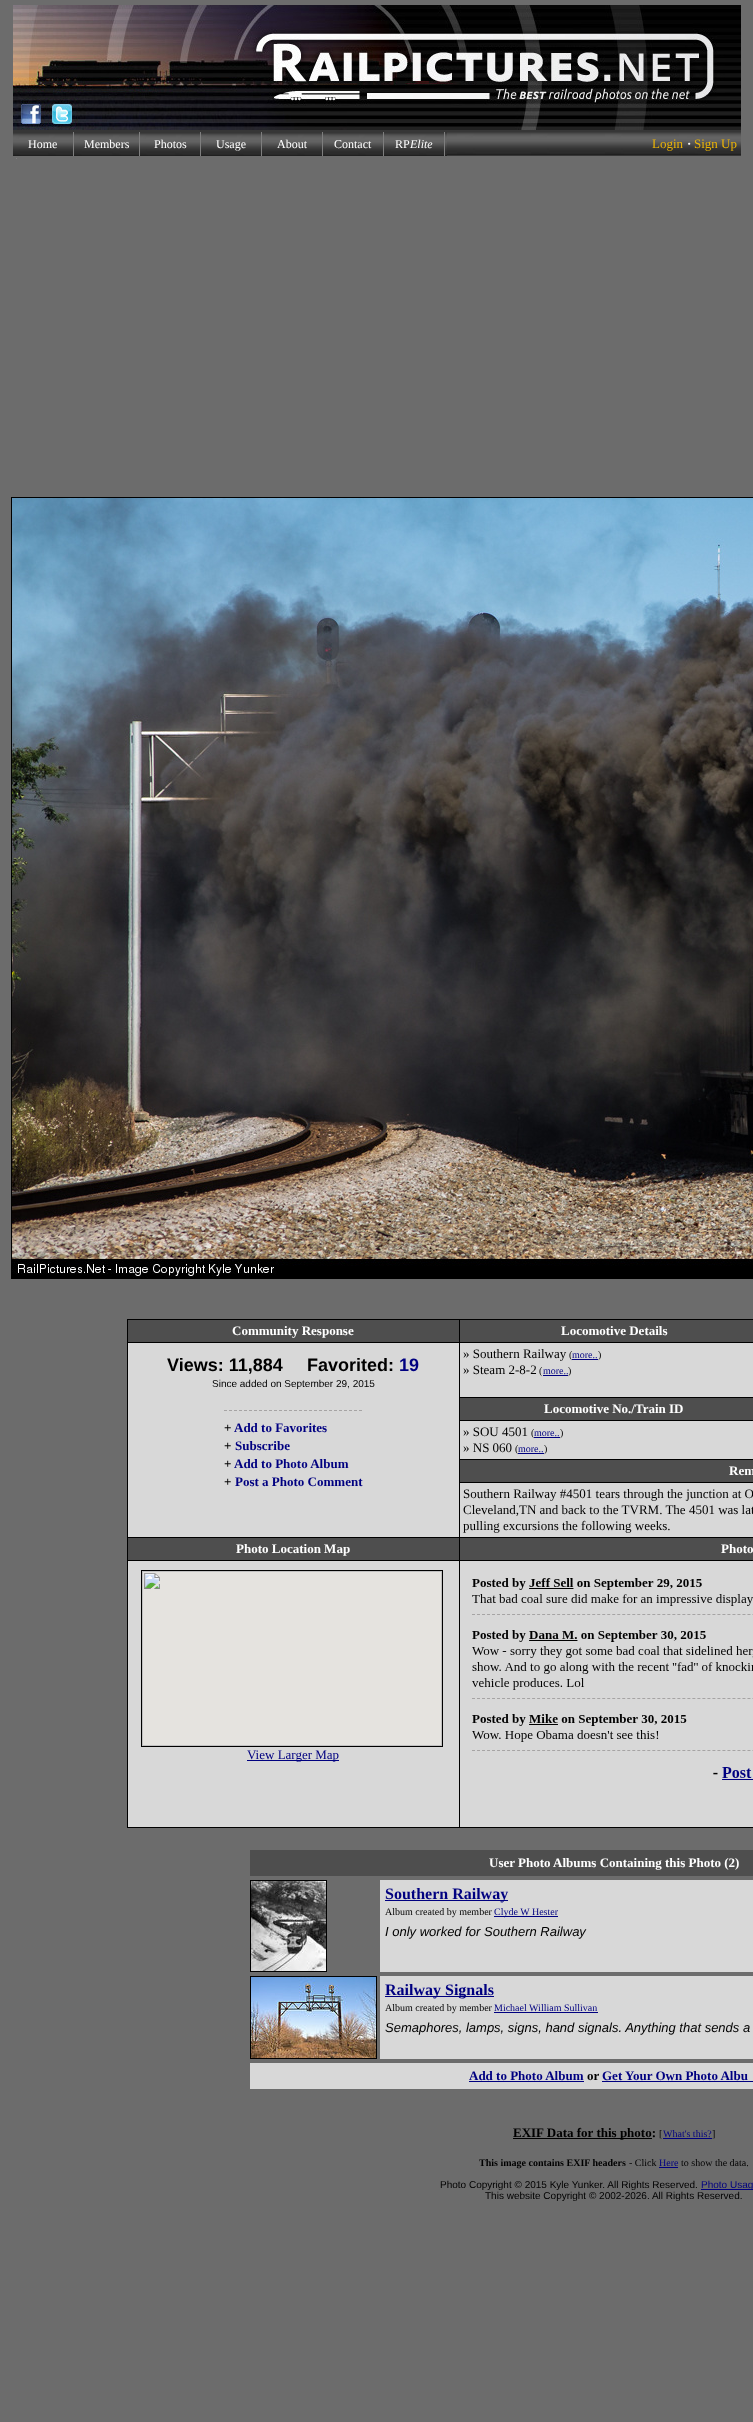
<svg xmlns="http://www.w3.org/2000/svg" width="753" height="2422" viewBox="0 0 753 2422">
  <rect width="100%" height="100%" fill="#6c6c6c"/>
  <image x="13" y="130" width="728" height="26" href="img9.png"/>
  <rect x="73" y="132" width="372" height="24" fill="#7e7e7e"/>
  <image x="13" y="132" width="60" height="24" href="img1.png"/>
  <image x="74" y="132" width="65" height="24" href="img2.png"/>
  <image x="140" y="132" width="60" height="24" href="img1.png"/>
  <image x="201" y="132" width="60" height="24" href="img1.png"/>
  <image x="262" y="132" width="60" height="24" href="img1.png"/>
  <image x="323" y="132" width="60" height="24" href="img1.png"/>
  <image x="384" y="132" width="60" height="24" href="img1.png"/>
  <image x="445" y="132" width="2" height="24" href="img3.png"/>
  <text x="28" y="148" font-family="Liberation Serif" font-size="12" fill="#ffffff">Home</text>
  <text x="84" y="148" font-family="Liberation Serif" font-size="12" fill="#ffffff">Members</text>
  <text x="154" y="148" font-family="Liberation Serif" font-size="12" fill="#ffffff">Photos</text>
  <text x="216" y="148" font-family="Liberation Serif" font-size="12" fill="#ffffff">Usage</text>
  <text x="277" y="148" font-family="Liberation Serif" font-size="12" fill="#ffffff">About</text>
  <text x="334" y="148" font-family="Liberation Serif" font-size="12" fill="#ffffff">Contact</text>
  <text x="395" y="148" font-family="Liberation Serif" font-size="12" fill="#ffffff">RP</text>
  <text x="410" y="148" font-family="Liberation Serif" font-size="12" font-style="italic" fill="#ffffff">Elite</text>
  <image x="13" y="5" width="728" height="93" href="img4.png"/>
  <image x="13" y="98" width="33" height="32" href="img5.png"/>
  <image x="46" y="98" width="32" height="32" href="img6.png"/>
  <image x="78" y="98" width="29" height="32" href="img7.png"/>
  <image x="107" y="98" width="634" height="32" href="img8.png"/>
  <text x="652" y="148" font-family="Liberation Serif" font-size="13" fill="#ecb406">Login</text>
  <text x="687" y="148" font-family="Liberation Serif" font-size="13" font-weight="bold" fill="#f3f3f3">·</text>
  <text x="694" y="148" font-family="Liberation Serif" font-size="13" fill="#ecb406">Sign Up</text>
  <rect x="16" y="158" width="1" height="1" fill="#7f7f7f"/>
  <rect x="11.5" y="497.5" width="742" height="781" fill="none" stroke="#000000"/>
  <image x="12" y="498" width="741" height="780" href="img10.png"/>
  <rect x="127" y="1319" width="626" height="509" fill="#000000"/>
  <rect x="128" y="1320" width="331" height="22" fill="#4e4e4e"/>
  <text x="232" y="1335" font-family="Liberation Serif" font-size="13" font-weight="bold" fill="#ffffff">Community Response</text>
  <rect x="460" y="1320" width="293" height="22" fill="#4e4e4e"/>
  <text x="561" y="1335" font-family="Liberation Serif" font-size="13" font-weight="bold" fill="#ffffff">Locomotive Details</text>
  <rect x="128" y="1343" width="331" height="194" fill="#d8d8d8"/>
  <text x="167" y="1371" font-family="Liberation Sans" font-size="18" font-weight="bold" fill="#000000">Views: 11,884</text>
  <text x="307" y="1371" font-family="Liberation Sans" font-size="18" font-weight="bold" fill="#000000">Favorited:</text>
  <text x="399" y="1371" font-family="Liberation Sans" font-size="18" font-weight="bold" fill="#000080">19</text>
  <text x="212" y="1387" font-family="Liberation Sans" font-size="10" fill="#000000">Since added on September 29, 2015</text>
  <path d="M224 1410.5H362" fill="none" stroke="#a6a4a4" stroke-dasharray="3 2"/>
  <text x="224" y="1432" font-family="Liberation Serif" font-size="13" font-weight="bold" fill="#000000">+</text>
  <text x="234" y="1432" font-family="Liberation Serif" font-size="13" font-weight="bold" fill="#000080">Add to Favorites</text>
  <text x="224" y="1450" font-family="Liberation Serif" font-size="13" font-weight="bold" fill="#000000">+</text>
  <text x="235" y="1450" font-family="Liberation Serif" font-size="13" font-weight="bold" fill="#000080">Subscribe</text>
  <text x="224" y="1468" font-family="Liberation Serif" font-size="13" font-weight="bold" fill="#000000">+</text>
  <text x="234" y="1468" font-family="Liberation Serif" font-size="13" font-weight="bold" fill="#000080">Add to Photo Album</text>
  <text x="224" y="1486" font-family="Liberation Serif" font-size="13" font-weight="bold" fill="#000000">+</text>
  <text x="235" y="1486" font-family="Liberation Serif" font-size="13" font-weight="bold" fill="#000080">Post a Photo Comment</text>
  <rect x="460" y="1343" width="293" height="54" fill="#d8d8d8"/>
  <text x="463" y="1358" font-family="Liberation Serif" font-size="13" fill="#000000">» Southern Railway</text>
  <text x="569" y="1358" font-family="Liberation Serif" font-size="10" fill="#000000">(</text>
  <rect x="572" y="1359" width="26" height="1" fill="#000080"/>
  <text x="572" y="1358" font-family="Liberation Serif" font-size="10" fill="#000080">more..</text>
  <text x="598" y="1358" font-family="Liberation Serif" font-size="10" fill="#000000">)</text>
  <text x="463" y="1374" font-family="Liberation Serif" font-size="13" fill="#000000">» Steam 2-8-2</text>
  <text x="539" y="1374" font-family="Liberation Serif" font-size="10" fill="#000000">(</text>
  <rect x="543" y="1375" width="25" height="1" fill="#000080"/>
  <text x="543" y="1374" font-family="Liberation Serif" font-size="10" fill="#000080">more..</text>
  <text x="568" y="1374" font-family="Liberation Serif" font-size="10" fill="#000000">)</text>
  <rect x="460" y="1398" width="293" height="22" fill="#4e4e4e"/>
  <text x="544" y="1413" font-family="Liberation Serif" font-size="13" font-weight="bold" fill="#ffffff">Locomotive No./Train ID</text>
  <rect x="460" y="1421" width="293" height="38" fill="#d8d8d8"/>
  <text x="463" y="1436" font-family="Liberation Serif" font-size="13" fill="#000000">» SOU 4501</text>
  <text x="531" y="1436" font-family="Liberation Serif" font-size="10" fill="#000000">(</text>
  <rect x="534" y="1437" width="26" height="1" fill="#000080"/>
  <text x="534" y="1436" font-family="Liberation Serif" font-size="10" fill="#000080">more..</text>
  <text x="560" y="1436" font-family="Liberation Serif" font-size="10" fill="#000000">)</text>
  <text x="463" y="1452" font-family="Liberation Serif" font-size="13" fill="#000000">» NS 060</text>
  <text x="515" y="1452" font-family="Liberation Serif" font-size="10" fill="#000000">(</text>
  <rect x="518" y="1453" width="26" height="1" fill="#000080"/>
  <text x="518" y="1452" font-family="Liberation Serif" font-size="10" fill="#000080">more..</text>
  <text x="544" y="1452" font-family="Liberation Serif" font-size="10" fill="#000000">)</text>
  <rect x="460" y="1460" width="293" height="22" fill="#4e4e4e"/>
  <text x="729" y="1475" font-family="Liberation Serif" font-size="13" font-weight="bold" fill="#ffffff">Rem</text>
  <rect x="460" y="1483" width="293" height="54" fill="#d8d8d8"/>
  <text x="463" y="1498" font-family="Liberation Serif" font-size="13" fill="#000000">Southern Railway #4501 tears through the junction at O</text>
  <text x="463" y="1514" font-family="Liberation Serif" font-size="13" fill="#000000">Cleveland,TN and back to the TVRM. The 4501 was lat</text>
  <text x="463" y="1530" font-family="Liberation Serif" font-size="13" fill="#000000">pulling excursions the following weeks.</text>
  <rect x="128" y="1538" width="331" height="22" fill="#4e4e4e"/>
  <text x="236" y="1553" font-family="Liberation Serif" font-size="13" font-weight="bold" fill="#ffffff">Photo Location Map</text>
  <rect x="460" y="1538" width="293" height="22" fill="#4e4e4e"/>
  <text x="721" y="1553" font-family="Liberation Serif" font-size="13" font-weight="bold" fill="#ffffff">Photo</text>
  <rect x="128" y="1561" width="331" height="266" fill="#d8d8d8"/>
  <rect x="141.5" y="1570.5" width="301" height="176" fill="none" stroke="#000000"/>
  <image x="142" y="1571" width="300" height="175" href="img11.png"/>
  <rect x="247" y="1760" width="92" height="1" fill="#000080"/>
  <text x="247" y="1759" font-family="Liberation Serif" font-size="13" fill="#000080">View Larger Map</text>
  <rect x="460" y="1561" width="293" height="266" fill="#d8d8d8"/>
  <image x="472" y="1578" width="281" height="202" href="img12.png"/>
  <rect x="250" y="1850" width="503" height="26" fill="#4e4e4e"/>
  <text x="489" y="1867" font-family="Liberation Serif" font-size="13" font-weight="bold" fill="#ffffff">User Photo Albums Containing this Photo (2)</text>
  <rect x="250.5" y="1880.5" width="76" height="91" fill="none" stroke="#000000"/>
  <image x="251" y="1881" width="75" height="90" href="img13.png"/>
  <rect x="380" y="1880" width="373" height="92" fill="#d8d8d8"/>
  <rect x="385" y="1900" width="123" height="1" fill="#000080"/>
  <text x="385" y="1899" font-family="Liberation Serif" font-size="16" font-weight="bold" fill="#000080">Southern Railway</text>
  <text x="385" y="1915" font-family="Liberation Serif" font-size="10" fill="#000000">Album created by member</text>
  <rect x="494" y="1916" width="64" height="1" fill="#000080"/>
  <text x="494" y="1915" font-family="Liberation Serif" font-size="10" fill="#000080">Clyde W Hester</text>
  <text x="385" y="1936" font-family="Liberation Sans" font-size="13" font-style="italic" fill="#000000">I only worked for Southern Railway</text>
  <rect x="250.5" y="1976.5" width="126" height="82" fill="none" stroke="#000000"/>
  <image x="251" y="1977" width="125" height="81" href="img14.png"/>
  <rect x="380" y="1976" width="373" height="83" fill="#d8d8d8"/>
  <rect x="385" y="1996" width="109" height="1" fill="#000080"/>
  <text x="385" y="1995" font-family="Liberation Serif" font-size="16" font-weight="bold" fill="#000080">Railway Signals</text>
  <text x="385" y="2011" font-family="Liberation Serif" font-size="10" fill="#000000">Album created by member</text>
  <rect x="494" y="2012" width="104" height="1" fill="#000080"/>
  <text x="494" y="2011" font-family="Liberation Serif" font-size="10" fill="#000080">Michael William Sullivan</text>
  <text x="385" y="2032" font-family="Liberation Sans" font-size="13" font-style="italic" fill="#000000">Semaphores, lamps, signs, hand signals. Anything that sends a</text>
  <rect x="250" y="2063" width="503" height="26" fill="#d8d8d8"/>
  <text x="469" y="2080" font-family="Liberation Serif" font-size="13" font-weight="bold" fill="#000080">Add to Photo Album</text>
  <rect x="469" y="2081" width="115" height="1" fill="#000080"/>
  <text x="587" y="2080" font-family="Liberation Serif" font-size="13" font-weight="bold" fill="#000000">or</text>
  <text x="602" y="2080" font-family="Liberation Serif" font-size="13" font-weight="bold" fill="#000080">Get Your Own Photo Albu</text>
  <rect x="602" y="2081" width="151" height="1" fill="#000080"/>
  <rect x="513" y="2138" width="139" height="1" fill="#000000"/>
  <text x="513" y="2137" font-family="Liberation Serif" font-size="13" font-weight="bold" fill="#000000">EXIF Data for this photo:</text>
  <text x="659" y="2137" font-family="Liberation Serif" font-size="10" fill="#000000">[</text>
  <rect x="663" y="2138" width="49" height="1" fill="#000080"/>
  <text x="663" y="2137" font-family="Liberation Serif" font-size="10" fill="#000080">What's this?</text>
  <text x="712" y="2137" font-family="Liberation Serif" font-size="10" fill="#000000">]</text>
  <text x="479" y="2166" font-family="Liberation Serif" font-size="10" font-weight="bold" fill="#000000">This image contains EXIF headers</text>
  <text x="629" y="2166" font-family="Liberation Serif" font-size="10" fill="#000000">- Click</text>
  <text x="659" y="2166" font-family="Liberation Serif" font-size="10" fill="#000080">Here</text>
  <rect x="659" y="2167" width="19" height="1" fill="#000080"/>
  <text x="681" y="2166" font-family="Liberation Serif" font-size="10" fill="#000000">to show the data.</text>
  <text x="440" y="2188" font-family="Liberation Sans" font-size="10" fill="#000000">Photo Copyright © 2015 Kyle Yunker. All Rights Reserved.</text>
  <rect x="701" y="2189" width="52" height="1" fill="#000080"/>
  <text x="701" y="2188" font-family="Liberation Sans" font-size="10" fill="#000080">Photo Usag</text>
  <text x="485" y="2199" font-family="Liberation Sans" font-size="10" fill="#000000">This website Copyright © 2002-2026. All Rights Reserved.</text>
</svg>
